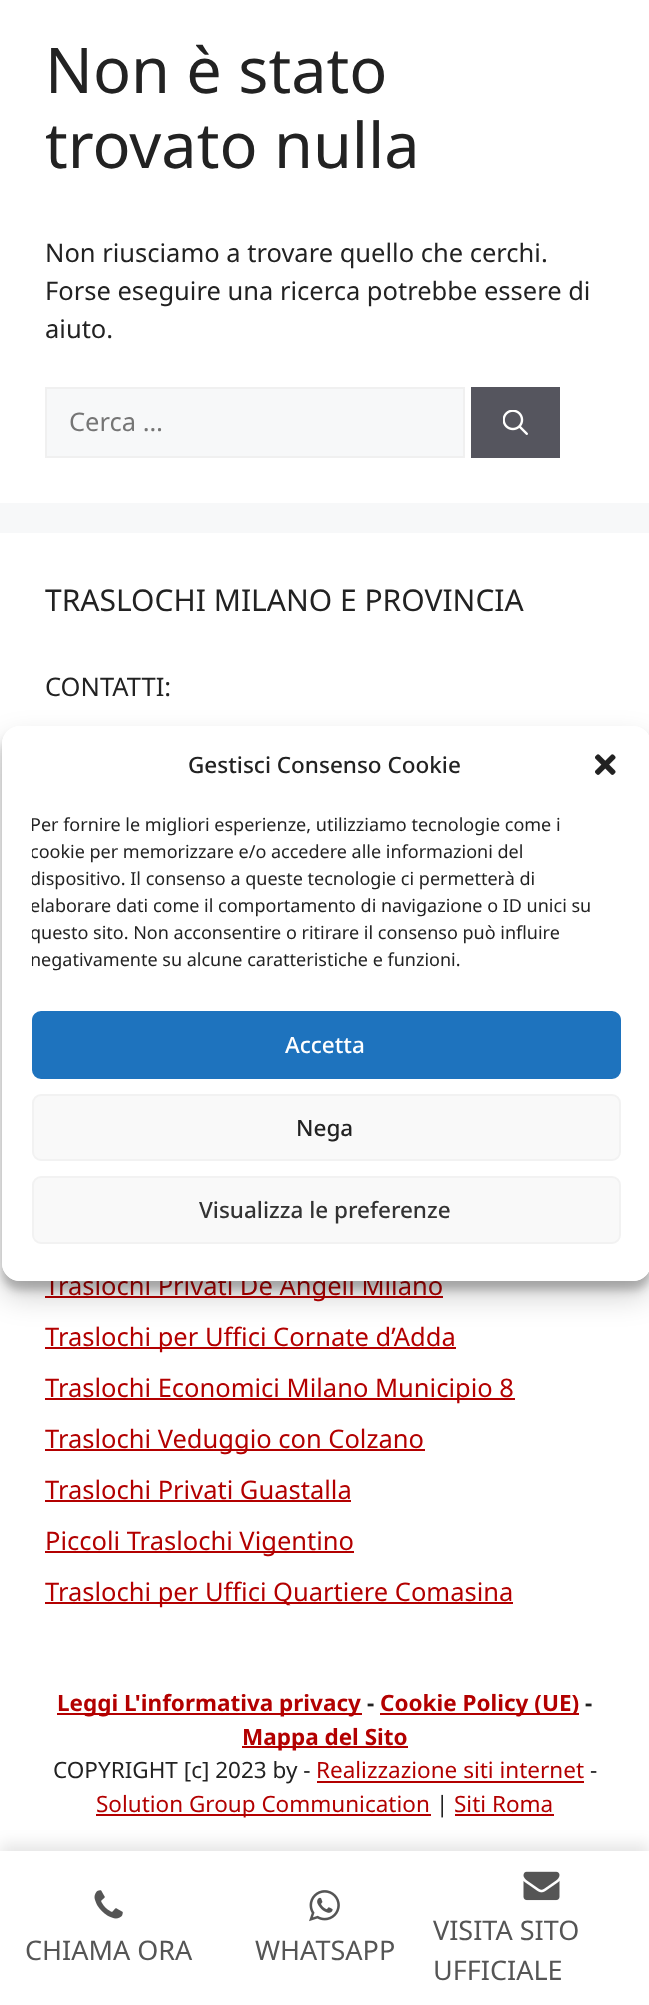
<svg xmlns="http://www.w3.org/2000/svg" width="649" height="2005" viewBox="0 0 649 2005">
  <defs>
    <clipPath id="clip1"><path d="M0 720H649V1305H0ZM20 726H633C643 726 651 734 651 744V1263C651 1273 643 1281 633 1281H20C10 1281 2 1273 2 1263V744C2 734 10 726 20 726Z" clip-rule="evenodd"/></clipPath>
    <filter id="blur1" x="-50%" y="-200%" width="200%" height="500%"><feGaussianBlur stdDeviation="4.5"/></filter>
    <clipPath id="clip2"><path d="M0 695H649V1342H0ZM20 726H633C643 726 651 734 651 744V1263C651 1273 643 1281 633 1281H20C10 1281 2 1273 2 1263V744C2 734 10 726 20 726Z" clip-rule="evenodd"/></clipPath>
    <filter id="blur2" x="-50%" y="-200%" width="200%" height="500%"><feGaussianBlur stdDeviation="15"/></filter>
    <clipPath id="clip3"><rect x="32" y="812" width="589" height="169"/></clipPath>
    <filter id="blur3" x="-50%" y="-200%" width="200%" height="500%"><feGaussianBlur stdDeviation="7.5"/></filter>
  </defs>
  <rect width="100%" height="100%" fill="#f7f8f9"/>
  <rect x="0" y="0" width="649" height="503" fill="#ffffff"/>
  <text x="45" y="93" font-family="Noto Sans" font-size="63" fill="#222222">Non è stato</text>
  <text x="45" y="168" font-family="Noto Sans" font-size="63" fill="#222222">trovato nulla</text>
  <text x="45" y="262" font-family="Noto Sans" font-size="25.5" fill="#222222">Non riusciamo a trovare quello che cerchi.</text>
  <text x="45" y="300" font-family="Noto Sans" font-size="25.5" fill="#222222">Forse eseguire una ricerca potrebbe essere di</text>
  <text x="45" y="338" font-family="Noto Sans" font-size="25.5" fill="#222222">aiuto.</text>
  <rect x="46" y="388" width="418" height="69" fill="#f7f8f9" stroke="#f0f0f0" stroke-width="2"/>
  <text x="69" y="431" font-family="Noto Sans" font-size="25.5" fill="#757575">Cerca …</text>
  <rect x="471" y="387" width="89" height="71" fill="#55555e"/>
  <image x="503" y="410" width="25" height="25" href="img1.png"/>
  <rect x="0" y="533" width="649" height="1318" fill="#ffffff"/>
  <text x="45" y="611" font-family="Noto Sans" font-size="30" fill="#222222">TRASLOCHI MILANO E PROVINCIA</text>
  <text x="45" y="696" font-family="Noto Sans" font-size="25.5" fill="#222222">CONTATTI:</text>
  <rect x="45" y="1296" width="398" height="2" fill="#b30000"/>
  <text x="45" y="1295" font-family="Noto Sans" font-size="25.5" fill="#b30000">Traslochi Privati De Angeli Milano</text>
  <rect x="45" y="1347" width="411" height="2" fill="#b30000"/>
  <text x="45" y="1346" font-family="Noto Sans" font-size="25.5" fill="#b30000">Traslochi per Uffici Cornate d’Adda</text>
  <rect x="45" y="1398" width="470" height="2" fill="#b30000"/>
  <text x="45" y="1397" font-family="Noto Sans" font-size="25.5" fill="#b30000">Traslochi Economici Milano Municipio 8</text>
  <rect x="45" y="1449" width="380" height="2" fill="#b30000"/>
  <text x="45" y="1448" font-family="Noto Sans" font-size="25.5" fill="#b30000">Traslochi Veduggio con Colzano</text>
  <text x="45" y="1499" font-family="Noto Sans" font-size="25.5" fill="#b30000">Traslochi Privati Guastalla</text>
  <rect x="45" y="1500" width="306" height="2" fill="#b30000"/>
  <rect x="45" y="1551" width="309" height="2" fill="#b30000"/>
  <text x="45" y="1550" font-family="Noto Sans" font-size="25.5" fill="#b30000">Piccoli Traslochi Vigentino</text>
  <rect x="45" y="1602" width="468" height="2" fill="#b30000"/>
  <text x="45" y="1601" font-family="Noto Sans" font-size="25.5" fill="#b30000">Traslochi per Uffici Quartiere Comasina</text>
  <rect x="57" y="1713" width="305" height="2" fill="#b30000"/>
  <text x="57" y="1711" font-family="Noto Sans" font-size="22.5" font-weight="bold" fill="#b30000">Leggi L'informativa privacy</text>
  <text x="367" y="1711" font-family="Noto Sans" font-size="22.5" font-weight="bold" fill="#222222">-</text>
  <rect x="380" y="1713" width="199" height="2" fill="#b30000"/>
  <text x="380" y="1711" font-family="Noto Sans" font-size="22.5" font-weight="bold" fill="#b30000">Cookie Policy (UE)</text>
  <text x="585" y="1711" font-family="Noto Sans" font-size="22.5" font-weight="bold" fill="#222222">-</text>
  <rect x="242" y="1746" width="166" height="2" fill="#b30000"/>
  <text x="242" y="1745" font-family="Noto Sans" font-size="22.5" font-weight="bold" fill="#b30000">Mappa del Sito</text>
  <text x="53" y="1778" font-family="Noto Sans" font-size="22.5" fill="#222222">COPYRIGHT [c] 2023 by -</text>
  <text x="316" y="1778" font-family="Noto Sans" font-size="22.5" fill="#b30000">Realizzazione siti internet</text>
  <rect x="317" y="1781" width="267" height="2" fill="#b30000"/>
  <text x="590" y="1778" font-family="Noto Sans" font-size="22.5" fill="#222222">-</text>
  <rect x="96" y="1814" width="335" height="2" fill="#b30000"/>
  <text x="96" y="1812" font-family="Noto Sans" font-size="22.5" fill="#b30000">Solution Group Communication</text>
  <text x="436" y="1812" font-family="Noto Sans" font-size="22.5" fill="#222222">|</text>
  <text x="454" y="1812" font-family="Noto Sans" font-size="22.5" fill="#b30000">Siti Roma</text>
  <rect x="455" y="1814" width="99" height="2" fill="#b30000"/>
  <g clip-path="url(#clip1)">
    <rect x="2" y="735" width="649" height="555" rx="18" fill="#000000" fill-opacity="0.23" filter="url(#blur1)"/>
  </g>
  <g clip-path="url(#clip2)">
    <rect x="2" y="741" width="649" height="555" rx="18" fill="#000000" fill-opacity="0.19" filter="url(#blur2)"/>
  </g>
  <rect x="2" y="726" width="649" height="555" rx="18" fill="#ffffff"/>
  <text x="188" y="773" font-family="Noto Sans" font-size="22.5" font-weight="500" fill="#222222">Gestisci Consenso Cookie</text>
  <image x="595" y="754" width="21" height="21" href="img2.png"/>
  <g clip-path="url(#clip3)">
    <text x="30" y="831" font-family="Noto Sans" font-size="18" fill="#222222">Per fornire le migliori esperienze, utilizziamo tecnologie come i</text>
    <text x="30" y="858" font-family="Noto Sans" font-size="18" fill="#222222">cookie per memorizzare e/o accedere alle informazioni del</text>
    <text x="30" y="885" font-family="Noto Sans" font-size="18" fill="#222222">dispositivo. Il consenso a queste tecnologie ci permetterà di</text>
    <text x="30" y="912" font-family="Noto Sans" font-size="18" fill="#222222">elaborare dati come il comportamento di navigazione o ID unici su</text>
    <text x="30" y="939" font-family="Noto Sans" font-size="18" fill="#222222">questo sito. Non acconsentire o ritirare il consenso può influire</text>
    <text x="30" y="966" font-family="Noto Sans" font-size="18" fill="#222222">negativamente su alcune caratteristiche e funzioni.</text>
  </g>
  <rect x="33" y="1012" width="587" height="66" rx="8" fill="#1e73be" stroke="#1e73be" stroke-width="2"/>
  <text x="285" y="1053" font-family="Noto Sans" font-size="22.5" font-weight="500" fill="#ffffff">Accetta</text>
  <rect x="33" y="1095" width="587" height="65" rx="8" fill="#f9f9f9" stroke="#f2f2f2" stroke-width="2"/>
  <text x="296" y="1136" font-family="Noto Sans" font-size="22.5" font-weight="500" fill="#222222">Nega</text>
  <rect x="33" y="1177" width="587" height="66" rx="8" fill="#f9f9f9" stroke="#f2f2f2" stroke-width="2"/>
  <text x="199" y="1218" font-family="Noto Sans" font-size="22.5" font-weight="500" fill="#333333">Visualizza le preferenze</text>
  <rect x="0" y="1844" width="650" height="154" fill="#000000" fill-opacity="0.1" filter="url(#blur3)"/>
  <rect x="0" y="1851" width="649" height="154" fill="#ffffff"/>
  <image x="94" y="1890" width="29" height="29" href="img3.png"/>
  <text x="25" y="1960" font-family="Noto Sans" font-size="27" fill="#555555">CHIAMA ORA</text>
  <image x="309" y="1890" width="31" height="32" href="img4.png"/>
  <text x="255" y="1960" font-family="Noto Sans" font-size="27" fill="#555555">WHATSAPP</text>
  <image x="523" y="1871" width="37" height="30" href="img5.png"/>
  <text x="433" y="1940" font-family="Noto Sans" font-size="27" fill="#555555">VISITA SITO</text>
  <text x="433" y="1980" font-family="Noto Sans" font-size="27" fill="#555555">UFFICIALE</text>
</svg>
